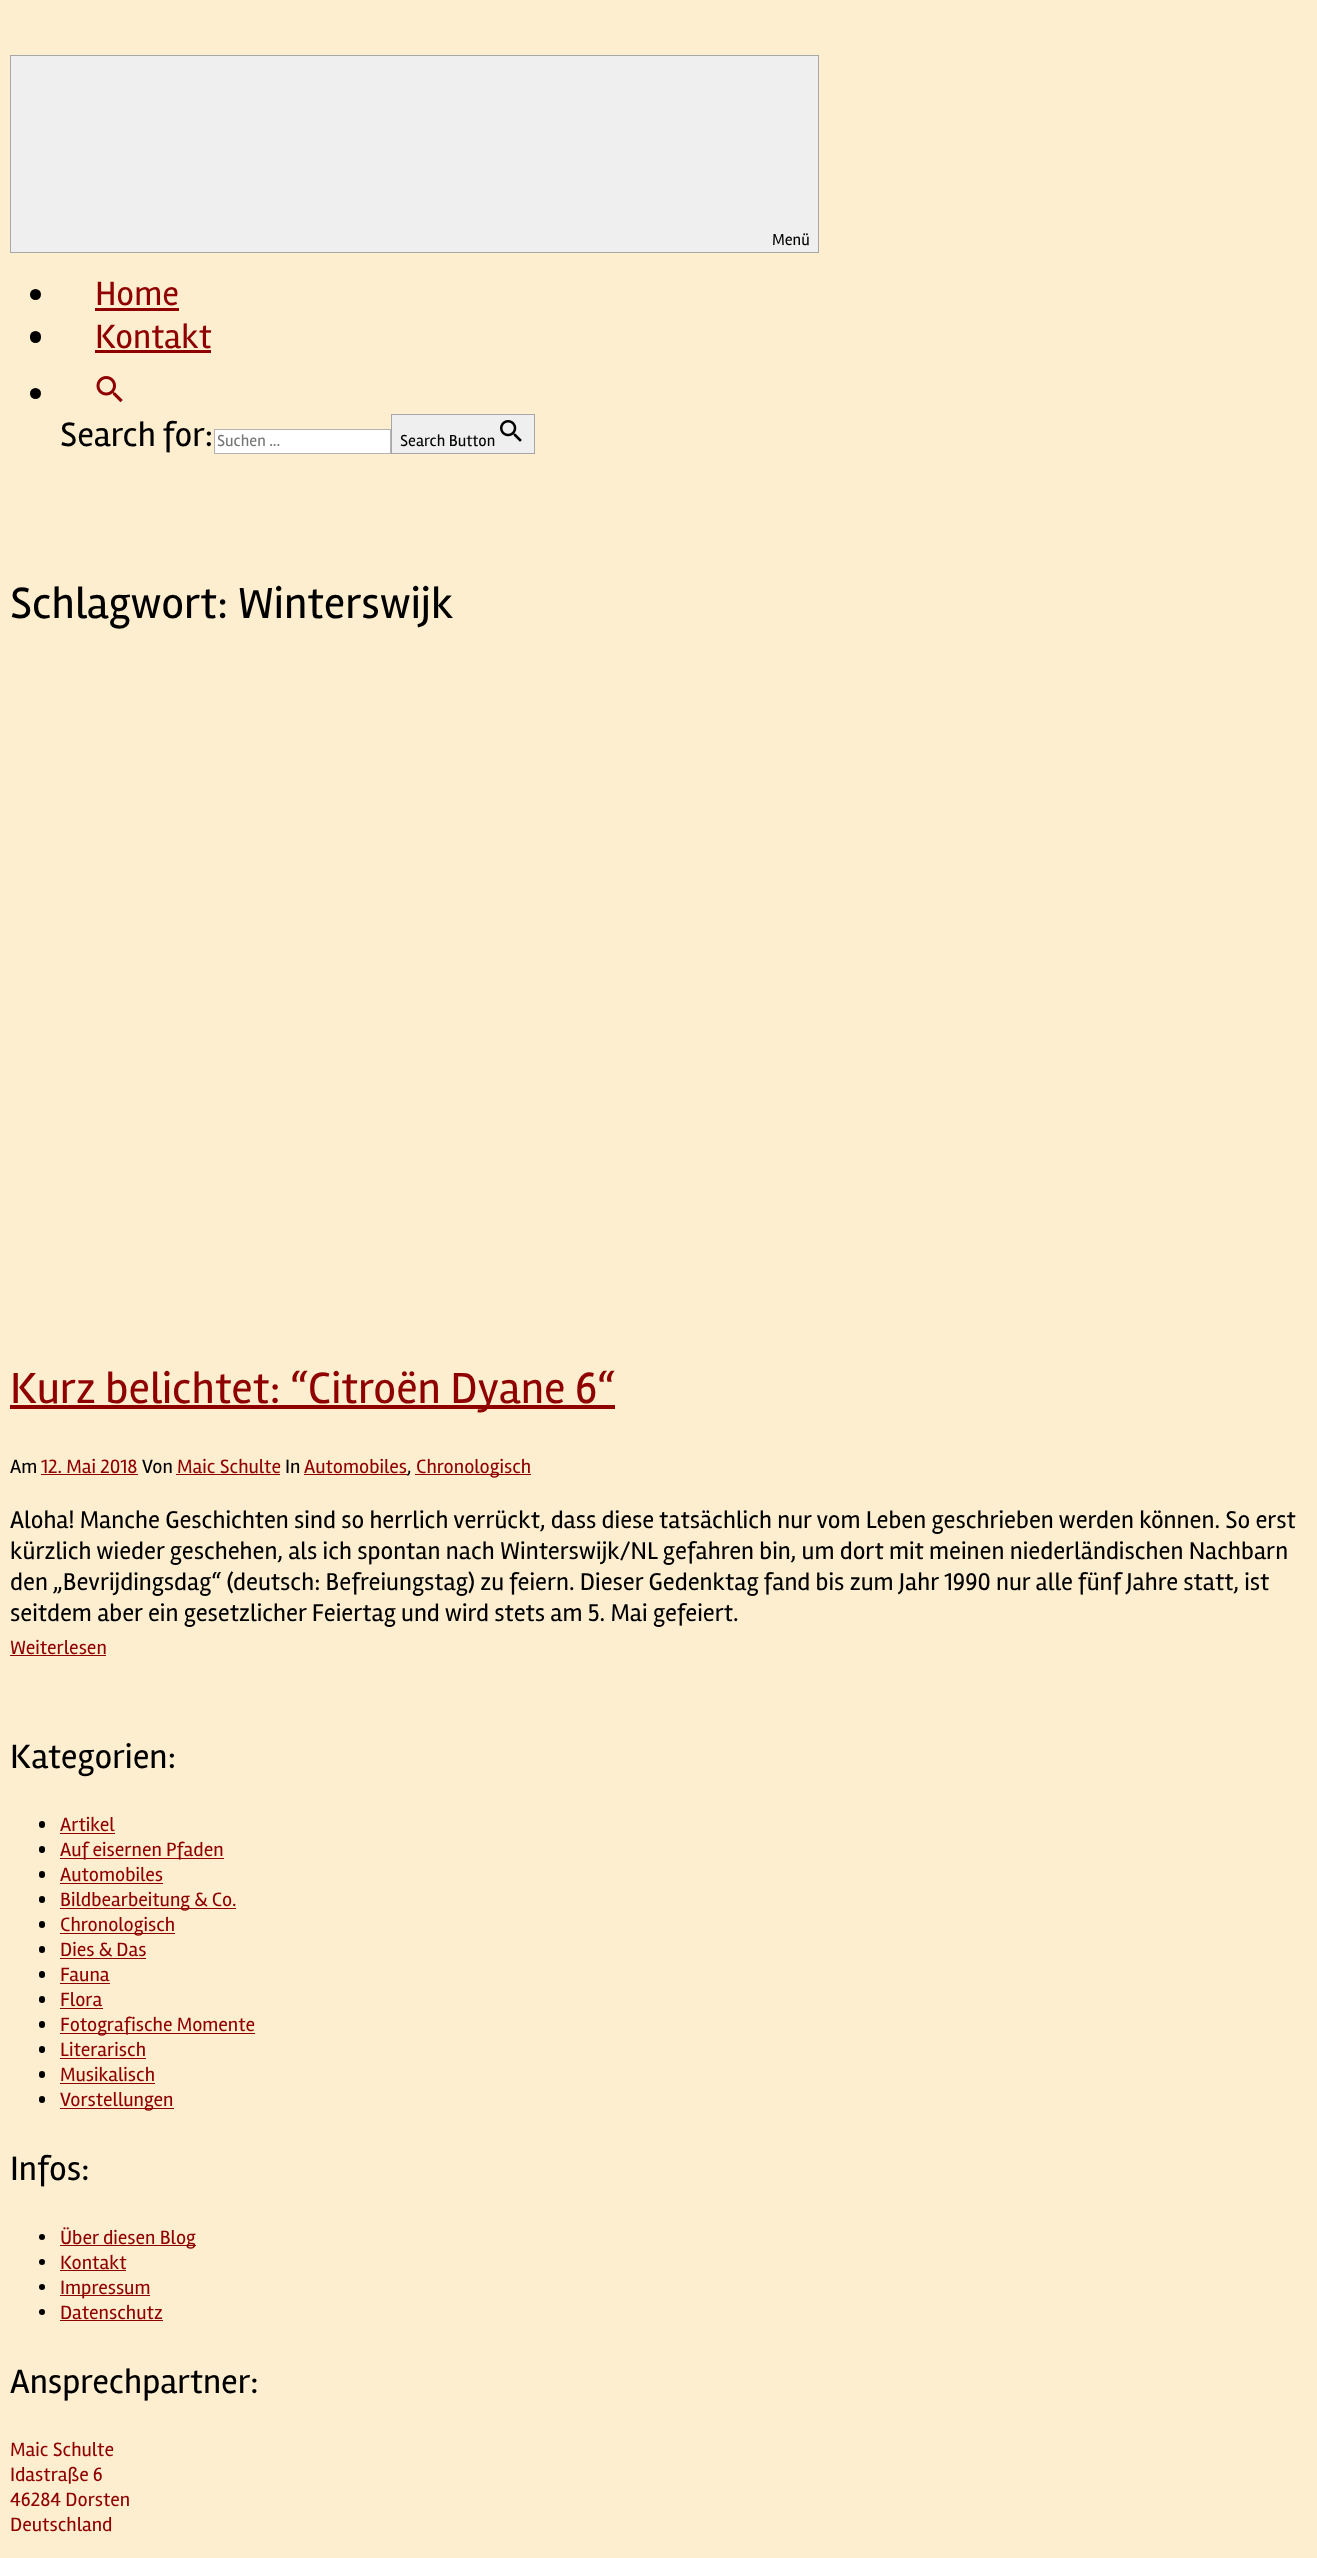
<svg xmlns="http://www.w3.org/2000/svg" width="1317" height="2558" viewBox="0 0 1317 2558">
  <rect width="100%" height="100%" fill="#fdeed0"/>
  <rect x="10.5" y="55.5" width="808" height="197" fill="#efefef" stroke="#a7a7a7"/>
  <text x="772" y="245" font-family="Rambla" font-size="16.5" fill="#000000">Menü</text>
  <circle cx="35.5" cy="294.5" r="5.5" fill="#000000"/>
  <text x="95" y="305" font-family="Rambla" font-size="35" fill="#8f0000">Home</text>
  <rect x="95" y="308" width="84" height="3" fill="#8f0000"/>
  <rect x="30" y="331" width="11" height="12" rx="5.5" fill="#000000"/>
  <text x="95" y="348" font-family="Rambla" font-size="35" fill="#8f0000">Kontakt</text>
  <rect x="95" y="350" width="116" height="3" fill="#8f0000"/>
  <circle cx="35.5" cy="393.5" r="5.5" fill="#000000"/>
  <image x="96" y="376" width="27" height="27" href="img1.png"/>
  <text x="60" y="446" font-family="Rambla" font-size="35" fill="#000000">Search for:</text>
  <rect x="214.5" y="429.5" width="176" height="24" fill="#ffffff" stroke="#b3b3b3"/>
  <text x="217" y="446" font-family="Rambla" font-size="16.5" fill="#757575">Suchen ...</text>
  <rect x="391.5" y="414.5" width="143" height="39" fill="#efefef" stroke="#a7a7a7"/>
  <text x="400" y="446" font-family="Rambla" font-size="16.5" fill="#000000">Search Button</text>
  <image x="500" y="420" width="22" height="22" href="img2.png"/>
  <text x="10" y="618" font-family="Rambla" font-size="45" fill="#000000">Schlagwort: Winterswijk</text>
  <rect x="10" y="1405" width="605" height="4" fill="#8f0000"/>
  <text x="10" y="1403" font-family="Rambla" font-size="45" fill="#8f0000">Kurz belichtet: “Citroën Dyane 6“</text>
  <text x="10" y="1473" font-family="Rambla" font-size="20" fill="#000000">Am</text>
  <text x="41" y="1473" font-family="Rambla" font-size="20" fill="#8f0000">12. Mai 2018</text>
  <rect x="41" y="1474" width="97" height="1" fill="#8f0000"/>
  <text x="142" y="1473" font-family="Rambla" font-size="20" fill="#000000">Von</text>
  <text x="177" y="1473" font-family="Rambla" font-size="20" fill="#8f0000">Maic Schulte</text>
  <rect x="176" y="1474" width="104" height="1" fill="#8f0000"/>
  <text x="285" y="1473" font-family="Rambla" font-size="20" fill="#000000">In</text>
  <text x="304" y="1473" font-family="Rambla" font-size="20" fill="#8f0000">Automobiles</text>
  <rect x="304" y="1474" width="104" height="1" fill="#8f0000"/>
  <text x="407" y="1473" font-family="Rambla" font-size="20" fill="#000000">,</text>
  <rect x="415" y="1474" width="116" height="1" fill="#8f0000"/>
  <text x="416" y="1473" font-family="Rambla" font-size="20" fill="#8f0000">Chronologisch</text>
  <text x="10" y="1528" font-family="Rambla" font-size="25" fill="#000000">Aloha! Manche Geschichten sind so herrlich verrückt, dass diese tatsächlich nur vom Leben geschrieben werden können. So erst</text>
  <text x="10" y="1559" font-family="Rambla" font-size="25" fill="#000000">kürzlich wieder geschehen, als ich spontan nach Winterswijk/NL gefahren bin, um dort mit meinen niederländischen Nachbarn</text>
  <text x="10" y="1590" font-family="Rambla" font-size="25" fill="#000000">den „Bevrijdingsdag“ (deutsch: Befreiungstag) zu feiern. Dieser Gedenktag fand bis zum Jahr 1990 nur alle fünf Jahre statt, ist</text>
  <text x="10" y="1621" font-family="Rambla" font-size="25" fill="#000000">seitdem aber ein gesetzlicher Feiertag und wird stets am 5. Mai gefeiert.</text>
  <text x="10" y="1654" font-family="Rambla" font-size="20" fill="#8f0000">Weiterlesen</text>
  <rect x="10" y="1655" width="96" height="1" fill="#8f0000"/>
  <text x="10" y="1768" font-family="Rambla" font-size="35" fill="#000000">Kategorien:</text>
  <rect x="39" y="1821" width="6" height="7" rx="3" fill="#000000"/>
  <text x="60" y="1831" font-family="Rambla" font-size="20" fill="#8f0000">Artikel</text>
  <rect x="60" y="1833" width="55" height="1" fill="#8f0000"/>
  <rect x="39" y="1846" width="6" height="7" rx="3" fill="#000000"/>
  <rect x="60" y="1858" width="164" height="1" fill="#8f0000"/>
  <text x="60" y="1856" font-family="Rambla" font-size="20" fill="#8f0000">Auf eisernen Pfaden</text>
  <rect x="39" y="1871" width="6" height="7" rx="3" fill="#000000"/>
  <text x="60" y="1881" font-family="Rambla" font-size="20" fill="#8f0000">Automobiles</text>
  <rect x="60" y="1883" width="103" height="1" fill="#8f0000"/>
  <rect x="39" y="1896" width="6" height="7" rx="3" fill="#000000"/>
  <rect x="60" y="1908" width="176" height="1" fill="#8f0000"/>
  <text x="60" y="1906" font-family="Rambla" font-size="20" fill="#8f0000">Bildbearbeitung &amp; Co.</text>
  <rect x="39" y="1921" width="6" height="7" rx="3" fill="#000000"/>
  <rect x="60" y="1933" width="115" height="1" fill="#8f0000"/>
  <text x="60" y="1931" font-family="Rambla" font-size="20" fill="#8f0000">Chronologisch</text>
  <rect x="39" y="1946" width="6" height="7" rx="3" fill="#000000"/>
  <text x="60" y="1956" font-family="Rambla" font-size="20" fill="#8f0000">Dies &amp; Das</text>
  <rect x="60" y="1958" width="86" height="1" fill="#8f0000"/>
  <rect x="39" y="1971" width="6" height="7" rx="3" fill="#000000"/>
  <text x="60" y="1981" font-family="Rambla" font-size="20" fill="#8f0000">Fauna</text>
  <rect x="60" y="1983" width="50" height="1" fill="#8f0000"/>
  <rect x="39" y="1996" width="6" height="7" rx="3" fill="#000000"/>
  <text x="60" y="2006" font-family="Rambla" font-size="20" fill="#8f0000">Flora</text>
  <rect x="60" y="2008" width="43" height="1" fill="#8f0000"/>
  <rect x="39" y="2021" width="6" height="7" rx="3" fill="#000000"/>
  <rect x="60" y="2033" width="195" height="1" fill="#8f0000"/>
  <text x="60" y="2031" font-family="Rambla" font-size="20" fill="#8f0000">Fotografische Momente</text>
  <rect x="39" y="2046" width="6" height="7" rx="3" fill="#000000"/>
  <text x="60" y="2056" font-family="Rambla" font-size="20" fill="#8f0000">Literarisch</text>
  <rect x="60" y="2058" width="86" height="1" fill="#8f0000"/>
  <rect x="39" y="2071" width="6" height="7" rx="3" fill="#000000"/>
  <text x="60" y="2081" font-family="Rambla" font-size="20" fill="#8f0000">Musikalisch</text>
  <rect x="60" y="2083" width="95" height="1" fill="#8f0000"/>
  <rect x="39" y="2096" width="6" height="7" rx="3" fill="#000000"/>
  <rect x="60" y="2108" width="114" height="1" fill="#8f0000"/>
  <text x="60" y="2106" font-family="Rambla" font-size="20" fill="#8f0000">Vorstellungen</text>
  <text x="10" y="2180" font-family="Rambla" font-size="35" fill="#000000">Infos:</text>
  <circle cx="42" cy="2237" r="3" fill="#000000"/>
  <rect x="60" y="2245" width="136" height="1" fill="#8f0000"/>
  <text x="60" y="2244" font-family="Rambla" font-size="20" fill="#8f0000">Über diesen Blog</text>
  <circle cx="42" cy="2262" r="3" fill="#000000"/>
  <text x="60" y="2269" font-family="Rambla" font-size="20" fill="#8f0000">Kontakt</text>
  <rect x="60" y="2270" width="66" height="1" fill="#8f0000"/>
  <circle cx="42" cy="2287" r="3" fill="#000000"/>
  <rect x="60" y="2295" width="90" height="1" fill="#8f0000"/>
  <text x="60" y="2294" font-family="Rambla" font-size="20" fill="#8f0000">Impressum</text>
  <circle cx="42" cy="2312" r="3" fill="#000000"/>
  <text x="60" y="2319" font-family="Rambla" font-size="20" fill="#8f0000">Datenschutz</text>
  <rect x="60" y="2320" width="103" height="1" fill="#8f0000"/>
  <text x="10" y="2393" font-family="Rambla" font-size="35" fill="#000000">Ansprechpartner:</text>
  <text x="10" y="2456" font-family="Rambla" font-size="20" fill="#8f0000">Maic Schulte</text>
  <text x="10" y="2481" font-family="Rambla" font-size="20" fill="#8f0000">Idastraße 6</text>
  <text x="10" y="2506" font-family="Rambla" font-size="20" fill="#8f0000">46284 Dorsten</text>
  <text x="10" y="2531" font-family="Rambla" font-size="20" fill="#8f0000">Deutschland</text>
</svg>
